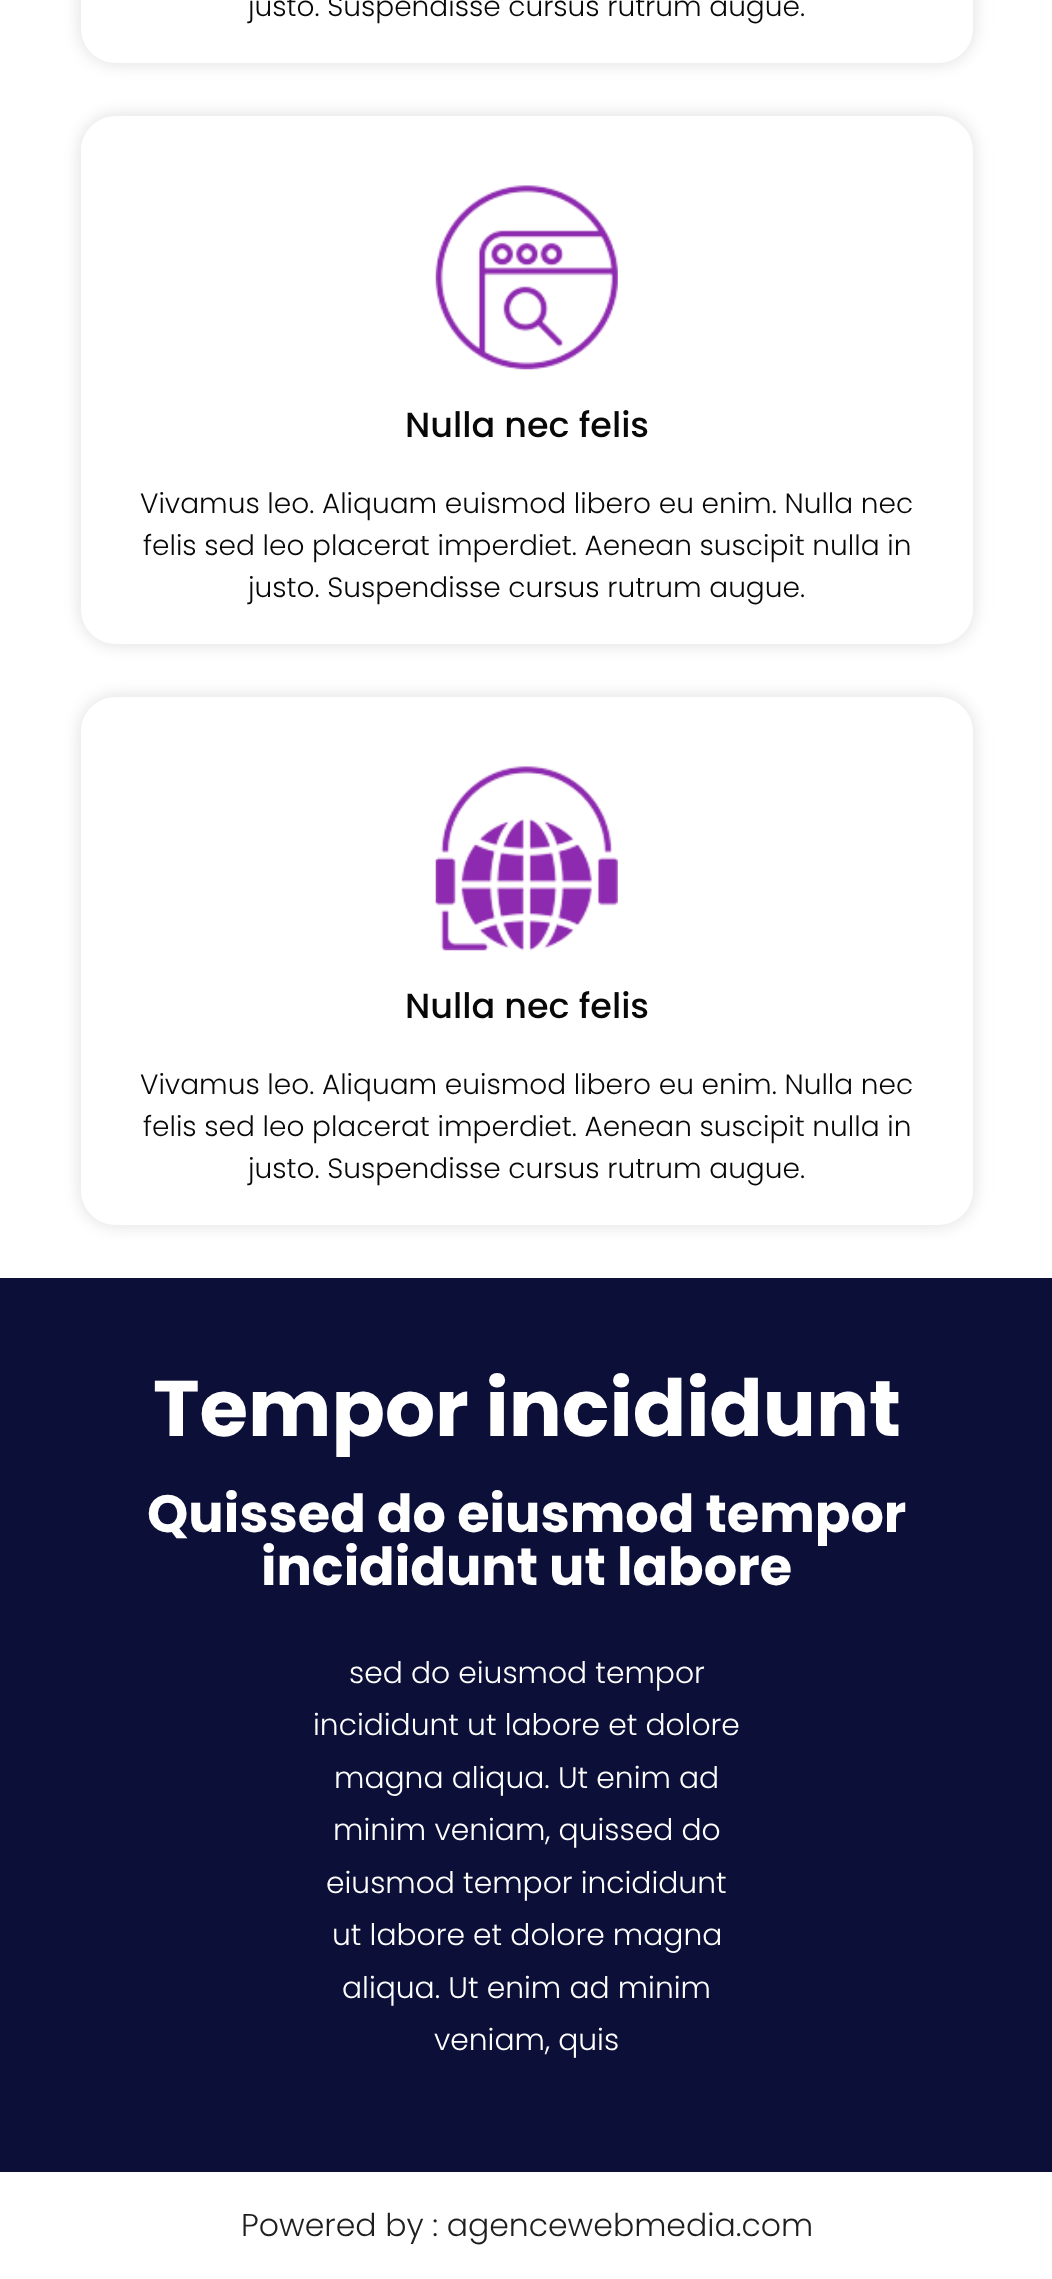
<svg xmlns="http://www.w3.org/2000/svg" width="1052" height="2279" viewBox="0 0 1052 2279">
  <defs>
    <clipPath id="clip1"><path d="M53 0H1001V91H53ZM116-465H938C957.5-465 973-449.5 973-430V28C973 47.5 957.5 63 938 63H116C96.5 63 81 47.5 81 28V-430C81-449.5 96.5-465 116-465Z" clip-rule="evenodd"/></clipPath>
    <filter id="blur1" x="-50%" y="-200%" width="200%" height="500%"><feGaussianBlur stdDeviation="9"/></filter>
    <clipPath id="clip2"><path d="M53 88H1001V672H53ZM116 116H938C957.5 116 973 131.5 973 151V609C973 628.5 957.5 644 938 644H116C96.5 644 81 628.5 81 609V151C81 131.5 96.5 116 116 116Z" clip-rule="evenodd"/></clipPath>
    <clipPath id="clip3"><path d="M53 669H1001V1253H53ZM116 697H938C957.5 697 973 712.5 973 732V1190C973 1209.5 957.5 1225 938 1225H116C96.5 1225 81 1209.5 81 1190V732C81 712.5 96.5 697 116 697Z" clip-rule="evenodd"/></clipPath>
  </defs>
  <rect width="100%" height="100%" fill="#ffffff"/>
  <g clip-path="url(#clip1)">
    <rect x="81" y="-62" width="892" height="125" rx="35" fill="#dddddd" filter="url(#blur1)"/>
  </g>
  <text x="248" y="16" font-family="Poppins" font-size="28" font-weight="300" fill="#090808">justo. Suspendisse cursus rutrum augue.</text>
  <g clip-path="url(#clip2)">
    <rect x="81" y="116" width="892" height="528" rx="35" fill="#dddddd" filter="url(#blur1)"/>
  </g>
  <image x="435" y="185" width="183" height="185" href="img1.png"/>
  <text x="405" y="437" font-family="Poppins" font-size="35" font-weight="500" fill="#090808">Nulla nec felis</text>
  <text x="140" y="513" font-family="Poppins" font-size="28" font-weight="300" fill="#090808">Vivamus leo. Aliquam euismod libero eu enim. Nulla nec</text>
  <text x="143" y="555" font-family="Poppins" font-size="28" font-weight="300" fill="#090808">felis sed leo placerat imperdiet. Aenean suscipit nulla in</text>
  <text x="248" y="597" font-family="Poppins" font-size="28" font-weight="300" fill="#090808">justo. Suspendisse cursus rutrum augue.</text>
  <g clip-path="url(#clip3)">
    <rect x="81" y="697" width="892" height="528" rx="35" fill="#dddddd" filter="url(#blur1)"/>
  </g>
  <image x="435" y="766" width="183" height="185" href="img2.png"/>
  <text x="405" y="1018" font-family="Poppins" font-size="35" font-weight="500" fill="#090808">Nulla nec felis</text>
  <text x="140" y="1094" font-family="Poppins" font-size="28" font-weight="300" fill="#090808">Vivamus leo. Aliquam euismod libero eu enim. Nulla nec</text>
  <text x="143" y="1136" font-family="Poppins" font-size="28" font-weight="300" fill="#090808">felis sed leo placerat imperdiet. Aenean suscipit nulla in</text>
  <text x="248" y="1178" font-family="Poppins" font-size="28" font-weight="300" fill="#090808">justo. Suspendisse cursus rutrum augue.</text>
  <rect x="0" y="1278" width="1052" height="894" fill="#0c0f38"/>
  <text x="153" y="1436" font-family="Poppins" font-size="78.75" font-weight="bold" fill="#ffffff">Tempor incididunt</text>
  <text x="147" y="1532" font-family="Poppins" font-size="52.5" font-weight="bold" fill="#ffffff">Quissed do eiusmod tempor</text>
  <text x="261" y="1585" font-family="Poppins" font-size="52.5" font-weight="bold" fill="#ffffff">incididunt ut labore</text>
  <text x="349" y="1683" font-family="Poppins" font-size="29.75" font-weight="300" fill="#ffffff">sed do eiusmod tempor</text>
  <text x="313" y="1735" font-family="Poppins" font-size="29.75" font-weight="300" fill="#ffffff">incididunt ut labore et dolore</text>
  <text x="334" y="1788" font-family="Poppins" font-size="29.75" font-weight="300" fill="#ffffff">magna aliqua. Ut enim ad</text>
  <text x="333" y="1840" font-family="Poppins" font-size="29.75" font-weight="300" fill="#ffffff">minim veniam, quissed do</text>
  <text x="326" y="1893" font-family="Poppins" font-size="29.75" font-weight="300" fill="#ffffff">eiusmod tempor incididunt</text>
  <text x="332" y="1945" font-family="Poppins" font-size="29.75" font-weight="300" fill="#ffffff">ut labore et dolore magna</text>
  <text x="342" y="1998" font-family="Poppins" font-size="29.75" font-weight="300" fill="#ffffff">aliqua. Ut enim ad minim</text>
  <text x="434" y="2050" font-family="Poppins" font-size="29.75" font-weight="300" fill="#ffffff">veniam, quis</text>
  <text x="241" y="2236" font-family="Poppins" font-size="31.5" font-weight="300" fill="#1e1e1e">Powered by : agencewebmedia.com</text>
</svg>
